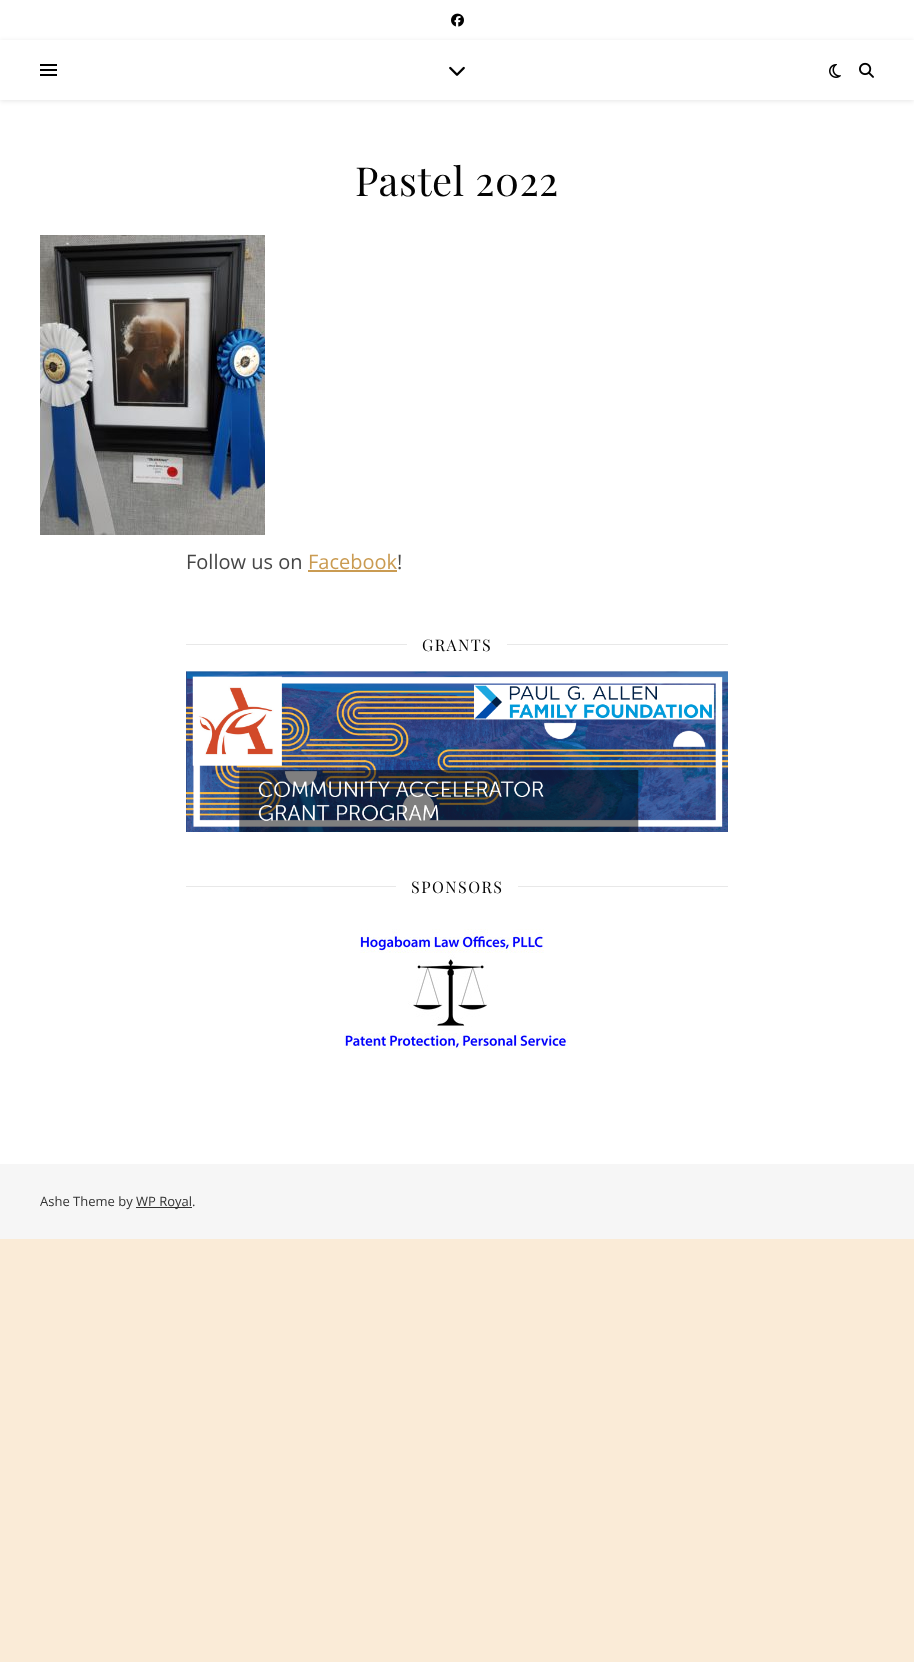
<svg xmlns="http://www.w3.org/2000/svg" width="914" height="1662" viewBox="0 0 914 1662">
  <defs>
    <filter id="blur1" x="-50%" y="-200%" width="200%" height="500%"><feGaussianBlur stdDeviation="2.5"/></filter>
  </defs>
  <rect width="100%" height="100%" fill="#faebd7"/>
  <rect x="0" y="0" width="914" height="40" fill="#ffffff"/>
  <image x="451" y="13" width="13" height="14" href="img1.png"/>
  <rect x="0" y="100" width="914" height="1064" fill="#ffffff"/>
  <rect x="0" y="41" width="914" height="60" fill="#000000" fill-opacity="0.1" filter="url(#blur1)"/>
  <rect x="0" y="40" width="914" height="60" fill="#ffffff"/>
  <rect x="40" y="64" width="17" height="2" fill="#000000"/>
  <rect x="40" y="69" width="17" height="2" fill="#000000"/>
  <rect x="40" y="74" width="17" height="2" fill="#000000"/>
  <image x="449" y="66" width="16" height="10" href="img2.png"/>
  <image x="829" y="64" width="12" height="14" href="img3.png"/>
  <image x="859" y="62" width="15" height="16" href="img4.png"/>
  <text x="355" y="196" font-family="Playfair Display" font-size="40" letter-spacing="0.5" fill="#030303">Pastel 2022</text>
  <image x="40" y="235" width="225" height="300" href="img5.png"/>
  <text x="186" y="569" font-family="Open Sans" font-size="20" fill="#464646">Follow us on</text>
  <text x="308" y="569" font-family="Open Sans" font-size="20" fill="#ca9b52">Facebook</text>
  <rect x="308" y="570" width="89" height="2" fill="#ca9b52"/>
  <text x="397" y="569" font-family="Open Sans" font-size="20" fill="#464646">!</text>
  <rect x="186" y="644" width="221" height="1" fill="#e8e8e8"/>
  <text x="422" y="651" font-family="Playfair Display" font-size="16" letter-spacing="1.5" fill="#030303">GRANTS</text>
  <rect x="507" y="644" width="221" height="1" fill="#e8e8e8"/>
  <image x="186" y="671" width="542" height="161" href="img6.png"/>
  <rect x="186" y="886" width="210" height="1" fill="#e8e8e8"/>
  <text x="411" y="893" font-family="Playfair Display" font-size="16" letter-spacing="1.5" fill="#030303">SPONSORS</text>
  <rect x="518" y="886" width="210" height="1" fill="#e8e8e8"/>
  <image x="344" y="929" width="224" height="120" href="img7.png"/>
  <rect x="0" y="1164" width="914" height="75" fill="#f6f6f6"/>
  <text x="40" y="1206" font-family="Open Sans" font-size="13" fill="#333333">Ashe Theme by</text>
  <rect x="136" y="1207" width="56" height="1" fill="#333333"/>
  <text x="136" y="1206" font-family="Open Sans" font-size="13" fill="#333333">WP Royal.</text>
</svg>
